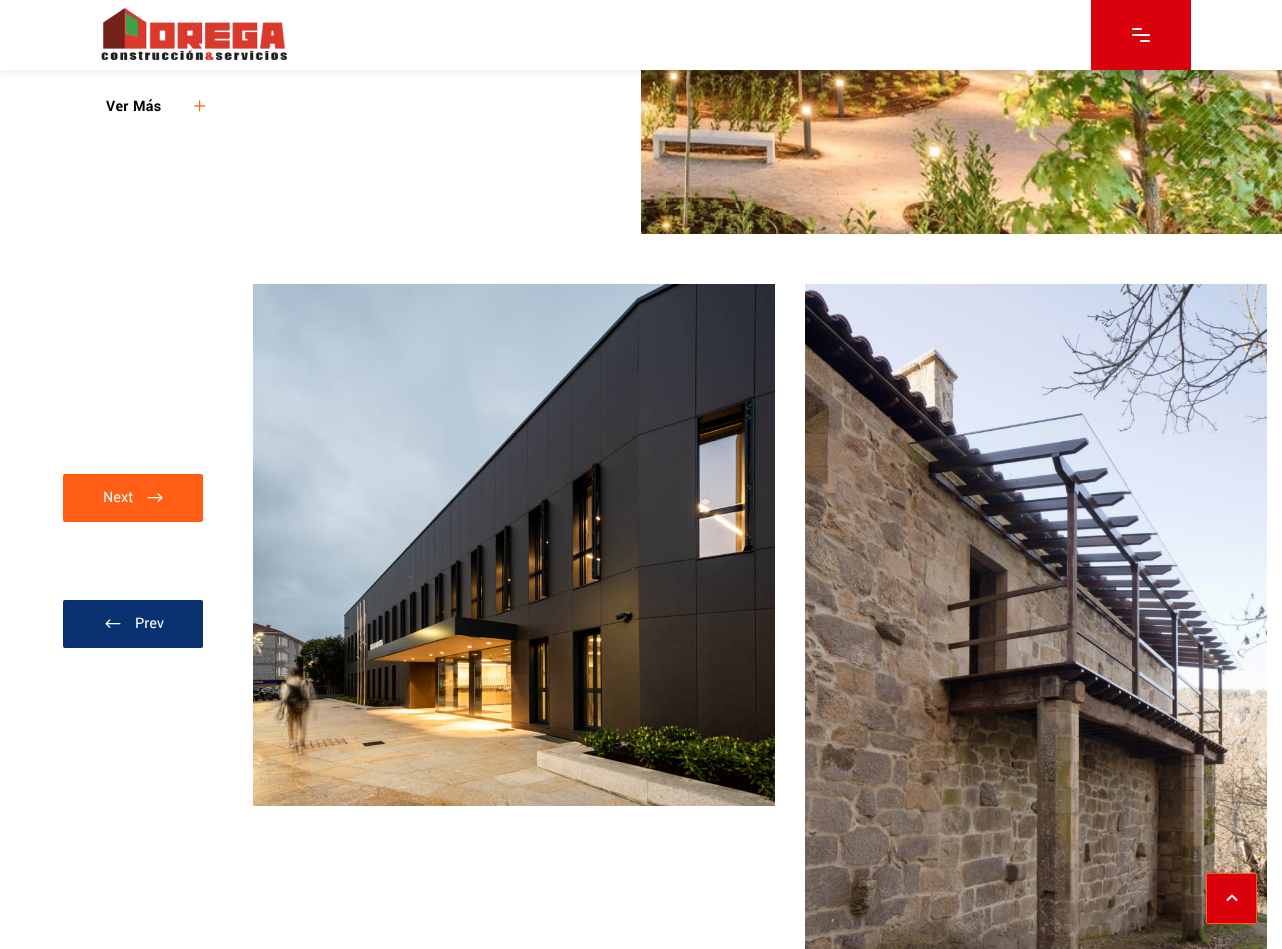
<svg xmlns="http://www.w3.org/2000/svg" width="1282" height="949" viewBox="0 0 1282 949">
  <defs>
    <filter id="blur1" x="-50%" y="-200%" width="200%" height="500%"><feGaussianBlur stdDeviation="5"/></filter>
  </defs>
  <rect width="100%" height="100%" fill="#ffffff"/>
  <image x="641" y="70" width="641" height="164" href="img3.png"/>
  <image x="1182" y="70" width="100" height="164" href="img4.png"/>
  <rect x="-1" y="1" width="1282" height="70" fill="#263b62" fill-opacity="0.1" filter="url(#blur1)"/>
  <rect x="0" y="0" width="1282" height="70" fill="#ffffff"/>
  <image x="101" y="8" width="187" height="52" href="img1.png"/>
  <rect x="1091" y="0" width="100" height="70" fill="#da000c"/>
  <rect x="1132" y="28" width="10" height="2" rx="1" fill="#ffffff"/>
  <rect x="1132" y="34" width="18" height="2" rx="1" fill="#ffffff"/>
  <rect x="1140" y="40" width="10" height="2" rx="1" fill="#ffffff"/>
  <text x="106" y="111" font-family="Yantramanav" font-size="16" font-weight="bold" letter-spacing="0.25" fill="#000000">Ver Más</text>
  <image x="194" y="100" width="12" height="12" href="img2.png"/>
  <rect x="63" y="474" width="140" height="48" rx="2" fill="#ff5e14"/>
  <text x="103" y="502" font-family="Yantramanav" font-size="16" fill="#ffffff">Next</text>
  <image x="147" y="493" width="16" height="9" href="img5.png"/>
  <rect x="63" y="600" width="140" height="48" rx="2" fill="#09316f"/>
  <image x="105" y="619" width="16" height="9" href="img6.png"/>
  <text x="135" y="628" font-family="Yantramanav" font-size="16" fill="#ffffff">Prev</text>
  <image x="253" y="284" width="522" height="522" href="img7.png"/>
  <image x="805" y="284" width="462" height="665" href="img8.png"/>
  <rect x="1206.5" y="873.5" width="50" height="50" rx="1.5" fill="#da000c" stroke="#ff5e14"/>
  <image x="1226" y="894" width="12" height="8" href="img9.png"/>
</svg>
